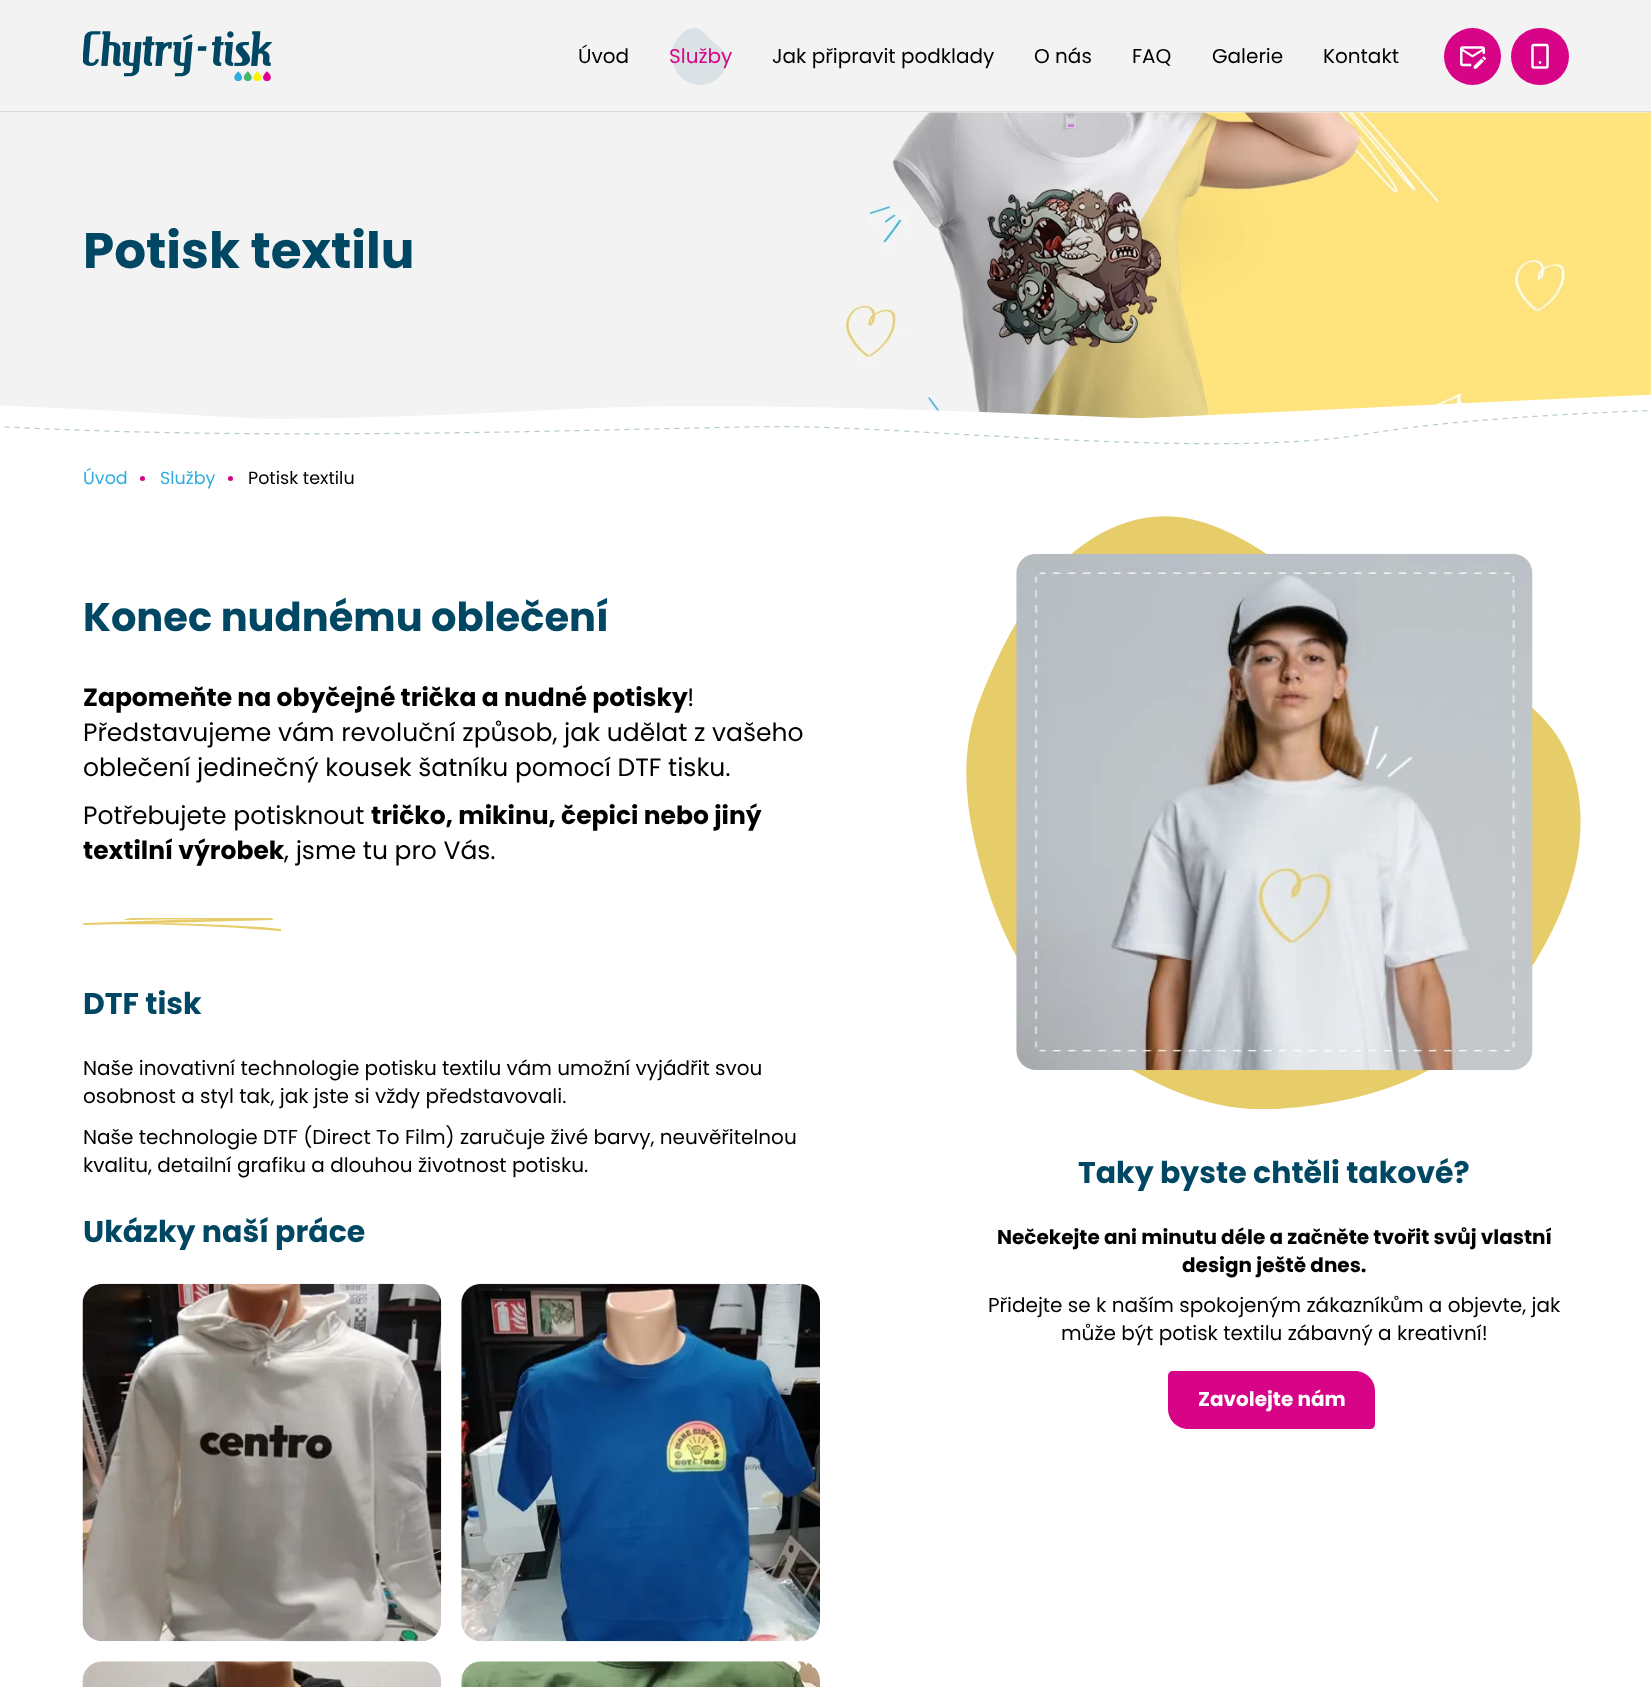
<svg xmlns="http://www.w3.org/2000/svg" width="1651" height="1687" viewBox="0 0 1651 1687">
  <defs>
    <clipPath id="clip1"><rect x="83" y="918" width="198" height="13"/></clipPath>
    <clipPath id="clip2"><rect x="966" y="516" width="615" height="593"/></clipPath>
  </defs>
  <rect width="100%" height="100%" fill="#ffffff"/>
  <rect x="0" y="0" width="1651" height="113" fill="#f3f3f3"/>
  <rect x="0" y="111" width="1651" height="1" fill="#d9d9d9"/>
  <image x="83" y="31" width="190" height="50" href="img1.png"/>
  <text x="578" y="63" font-family="Poppins" font-size="20" fill="#000000">Úvod</text>
  <path d="M676 41C681 33 691 23 702 31L712 41C722 50 735 55 724 71C708 96 674 85 672 57C672 52 672 46 676 41Z" fill="#dbe2e5" fill-rule="evenodd"/>
  <text x="669" y="63" font-family="Poppins" font-size="20" fill="#d80488">Služby</text>
  <text x="772" y="63" font-family="Poppins" font-size="20" fill="#000000">Jak připravit podklady</text>
  <text x="1034" y="63" font-family="Poppins" font-size="20" fill="#000000">O nás</text>
  <text x="1132" y="63" font-family="Poppins" font-size="20" fill="#000000">FAQ</text>
  <text x="1212" y="63" font-family="Poppins" font-size="20" fill="#000000">Galerie</text>
  <text x="1323" y="63" font-family="Poppins" font-size="20" fill="#000000">Kontakt</text>
  <circle cx="1472.5" cy="56.5" r="28.5" fill="#d80488"/>
  <image x="1460" y="46" width="26" height="23" href="img2.png"/>
  <rect x="1511" y="28" width="58" height="57" rx="28.5" fill="#d80488"/>
  <image x="1531" y="43" width="18" height="26" href="img3.png"/>
  <image x="0" y="112" width="1651" height="308" href="img4.png"/>
  <text x="83" y="268" font-family="Poppins" font-size="50" font-weight="bold" fill="#004763">Potisk textilu</text>
  <image x="0" y="394" width="1651" height="51" href="img5.png"/>
  <text x="83" y="484" font-family="Poppins" font-size="17.5" fill="#30addf">Úvod</text>
  <circle cx="142.5" cy="478.5" r="2.5" fill="#d80488"/>
  <text x="160" y="484" font-family="Poppins" font-size="17.5" fill="#30addf">Služby</text>
  <circle cx="230.5" cy="478.5" r="2.5" fill="#d80488"/>
  <text x="248" y="484" font-family="Poppins" font-size="17.5" fill="#000000">Potisk textilu</text>
  <text x="83" y="631" font-family="Poppins" font-size="40" font-weight="bold" fill="#004763">Konec nudnému oblečení</text>
  <text x="83" y="706" font-family="Poppins" font-size="25" font-weight="bold" fill="#000000">Zapomeňte na obyčejné trička a nudné potisky</text>
  <text x="687" y="706" font-family="Poppins" font-size="25" fill="#000000">!</text>
  <text x="83" y="741" font-family="Poppins" font-size="25" fill="#000000">Představujeme vám revoluční způsob, jak udělat z vašeho</text>
  <text x="83" y="776" font-family="Poppins" font-size="25" fill="#000000">oblečení jedinečný kousek šatníku pomocí DTF tisku.</text>
  <text x="83" y="824" font-family="Poppins" font-size="25" fill="#000000">Potřebujete potisknout</text>
  <text x="371" y="824" font-family="Poppins" font-size="25" font-weight="bold" fill="#000000">tričko, mikinu, čepici nebo jiný</text>
  <text x="83" y="859" font-family="Poppins" font-size="25" font-weight="bold" fill="#000000">textilní výrobek</text>
  <text x="284" y="859" font-family="Poppins" font-size="25" fill="#000000">, jsme tu pro Vás.</text>
  <g clip-path="url(#clip1)">
    <path d="M126 920C174 919 222 919 271 920L272 918L172 920L85 923C84 923 81 924 83 925L122 924C162 924 202 926 241 928L279 931H281C281 930 281 930 281 929L271 928C209 923 147 922 85 923L84 925L271 920C272 920 274 920 273 919C273 918 262 918 258 918C216 917 174 917 131 918L126 919C125 919 124 920 126 920Z" fill="#e7cc6a"/>
  </g>
  <text x="83" y="1014" font-family="Poppins" font-size="30" font-weight="bold" fill="#004763">DTF tisk</text>
  <text x="83" y="1075" font-family="Poppins" font-size="20" fill="#000000">Naše inovativní technologie potisku textilu vám umožní vyjádřit svou</text>
  <text x="83" y="1103" font-family="Poppins" font-size="20" fill="#000000">osobnost a styl tak, jak jste si vždy představovali.</text>
  <text x="83" y="1144" font-family="Poppins" font-size="20" fill="#000000">Naše technologie DTF (Direct To Film) zaručuje živé barvy, neuvěřitelnou</text>
  <text x="83" y="1172" font-family="Poppins" font-size="20" fill="#000000">kvalitu, detailní grafiku a dlouhou životnost potisku.</text>
  <text x="83" y="1242" font-family="Poppins" font-size="30" font-weight="bold" fill="#004763">Ukázky naší práce</text>
  <image x="82" y="1283" width="360" height="359" href="img6.png"/>
  <image x="461" y="1283" width="359" height="359" href="img7.png"/>
  <image x="82" y="1661" width="360" height="26" href="img8.png"/>
  <image x="461" y="1661" width="359" height="26" href="img9.png"/>
  <g clip-path="url(#clip2)">
    <path d="M979 702C1009 624 1056 538 1139 519C1221 501 1288 575 1360 617C1439 662 1545 681 1572 767C1601 855 1552 951 1491 1021C1438 1082 1356 1104 1276 1109C1209 1113 1148 1084 1094 1045C1045 1009 1012 959 992 902C970 836 954 767 979 702Z" fill="#e7cc6a" fill-rule="evenodd"/>
  </g>
  <image x="1016" y="553" width="517" height="517" href="img10.png"/>
  <text x="1078" y="1183" font-family="Poppins" font-size="30" font-weight="bold" fill="#004763">Taky byste chtěli takové?</text>
  <text x="997" y="1244" font-family="Poppins" font-size="20" font-weight="bold" fill="#000000">Nečekejte ani minutu déle a začněte tvořit svůj vlastní</text>
  <text x="1182" y="1272" font-family="Poppins" font-size="20" font-weight="bold" fill="#000000">design ještě dnes.</text>
  <text x="988" y="1312" font-family="Poppins" font-size="20" fill="#000000">Přidejte se k naším spokojeným zákazníkům a objevte, jak</text>
  <text x="1061" y="1340" font-family="Poppins" font-size="20" fill="#000000">může být potisk textilu zábavný a kreativní!</text>
  <path d="M1173 1371H1355C1366 1371 1375 1380 1375 1391V1424C1375 1427 1373 1429 1370 1429H1188C1177 1429 1168 1420 1168 1409V1376C1168 1373 1170 1371 1173 1371Z" fill="#d80488"/>
  <text x="1198" y="1406" font-family="Poppins" font-size="20" font-weight="bold" fill="#ffffff">Zavolejte nám</text>
</svg>
